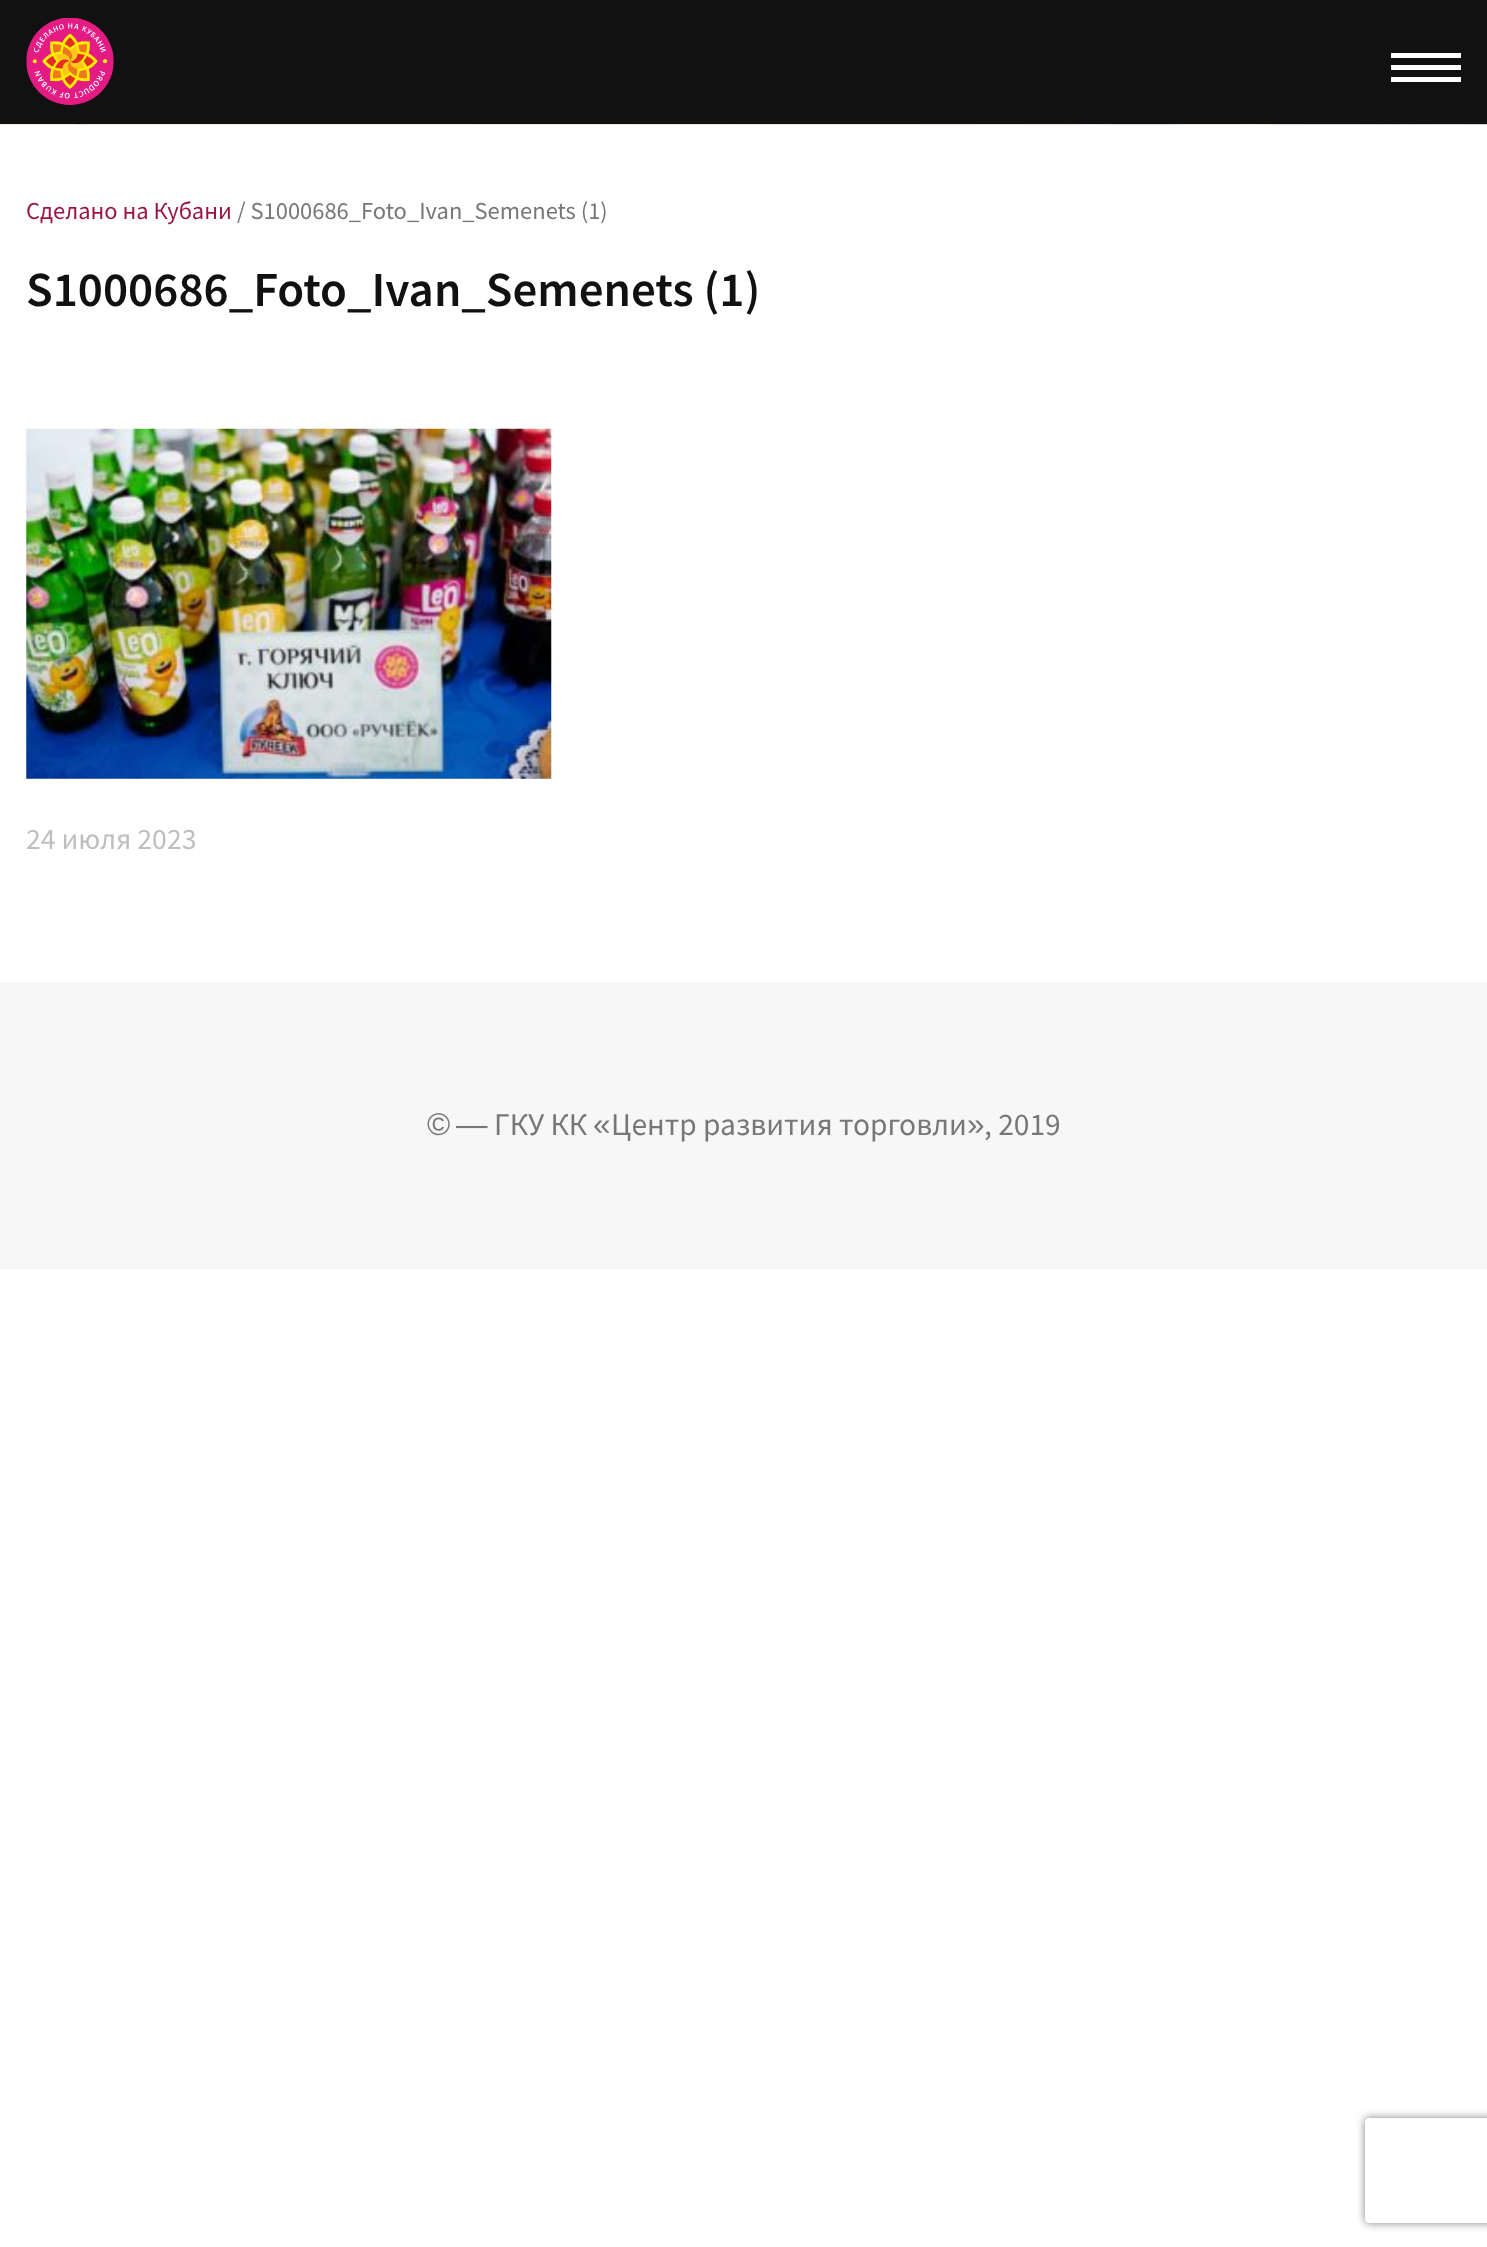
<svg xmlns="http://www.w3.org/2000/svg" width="1487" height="2247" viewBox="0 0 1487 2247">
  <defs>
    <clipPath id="clip1"><path d="M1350 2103H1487V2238H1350ZM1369 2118H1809C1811 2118 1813 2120 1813 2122V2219C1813 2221 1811 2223 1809 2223H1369C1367 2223 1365 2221 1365 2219V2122C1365 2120 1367 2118 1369 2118Z" clip-rule="evenodd"/></clipPath>
    <filter id="blur1" x="-50%" y="-200%" width="200%" height="500%"><feGaussianBlur stdDeviation="4.5"/></filter>
  </defs>
  <rect width="100%" height="100%" fill="#ffffff"/>
  <rect x="0" y="0" width="1487" height="124" fill="#111111"/>
  <image x="26" y="18" width="88" height="87" href="img1.png"/>
  <rect x="1391" y="53" width="70" height="5" fill="#ffffff"/>
  <rect x="1391" y="65" width="70" height="5" fill="#ffffff"/>
  <rect x="1391" y="77" width="70" height="5" fill="#ffffff"/>
  <image x="0" y="124" width="1487" height="1" href="img2.png"/>
  <text x="26" y="219" font-family="Source Sans Pro" font-size="24.5" fill="#991747">Сделано на Кубани</text>
  <text x="237" y="219" font-family="Source Sans Pro" font-size="24.5" fill="#777777">/ S1000686_Foto_Ivan_Semenets (1)</text>
  <text x="26" y="306" font-family="Source Sans Pro" font-size="49" font-weight="600" fill="#111111">S1000686_Foto_Ivan_Semenets (1)</text>
  <image x="26" y="428" width="526" height="351" href="img3.png"/>
  <text x="26" y="849" font-family="Source Sans Pro" font-size="29.75" fill="#bebebe">24 июля 2023</text>
  <rect x="0" y="982" width="1487" height="287" fill="#f7f7f7"/>
  <text x="427" y="1135" font-family="Liberation Sans" font-size="31.5" fill="#777777">©</text>
  <text x="456" y="1135" font-family="Liberation Sans" font-size="31.5" fill="#777777">—</text>
  <text x="494" y="1135" font-family="Source Sans Pro" font-size="31.5" fill="#777777">ГКУ КК</text>
  <text x="593" y="1135" font-family="Liberation Sans" font-size="31.5" fill="#777777">«</text>
  <text x="611" y="1135" font-family="Source Sans Pro" font-size="31.5" fill="#777777">Центр развития торговли</text>
  <text x="967" y="1135" font-family="Liberation Sans" font-size="31.5" fill="#777777">»</text>
  <text x="984" y="1135" font-family="Source Sans Pro" font-size="31.5" fill="#777777">, 2019</text>
  <g clip-path="url(#clip1)">
    <rect x="1365" y="2118" width="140" height="105" rx="4" fill="#808080" filter="url(#blur1)"/>
  </g>
</svg>
